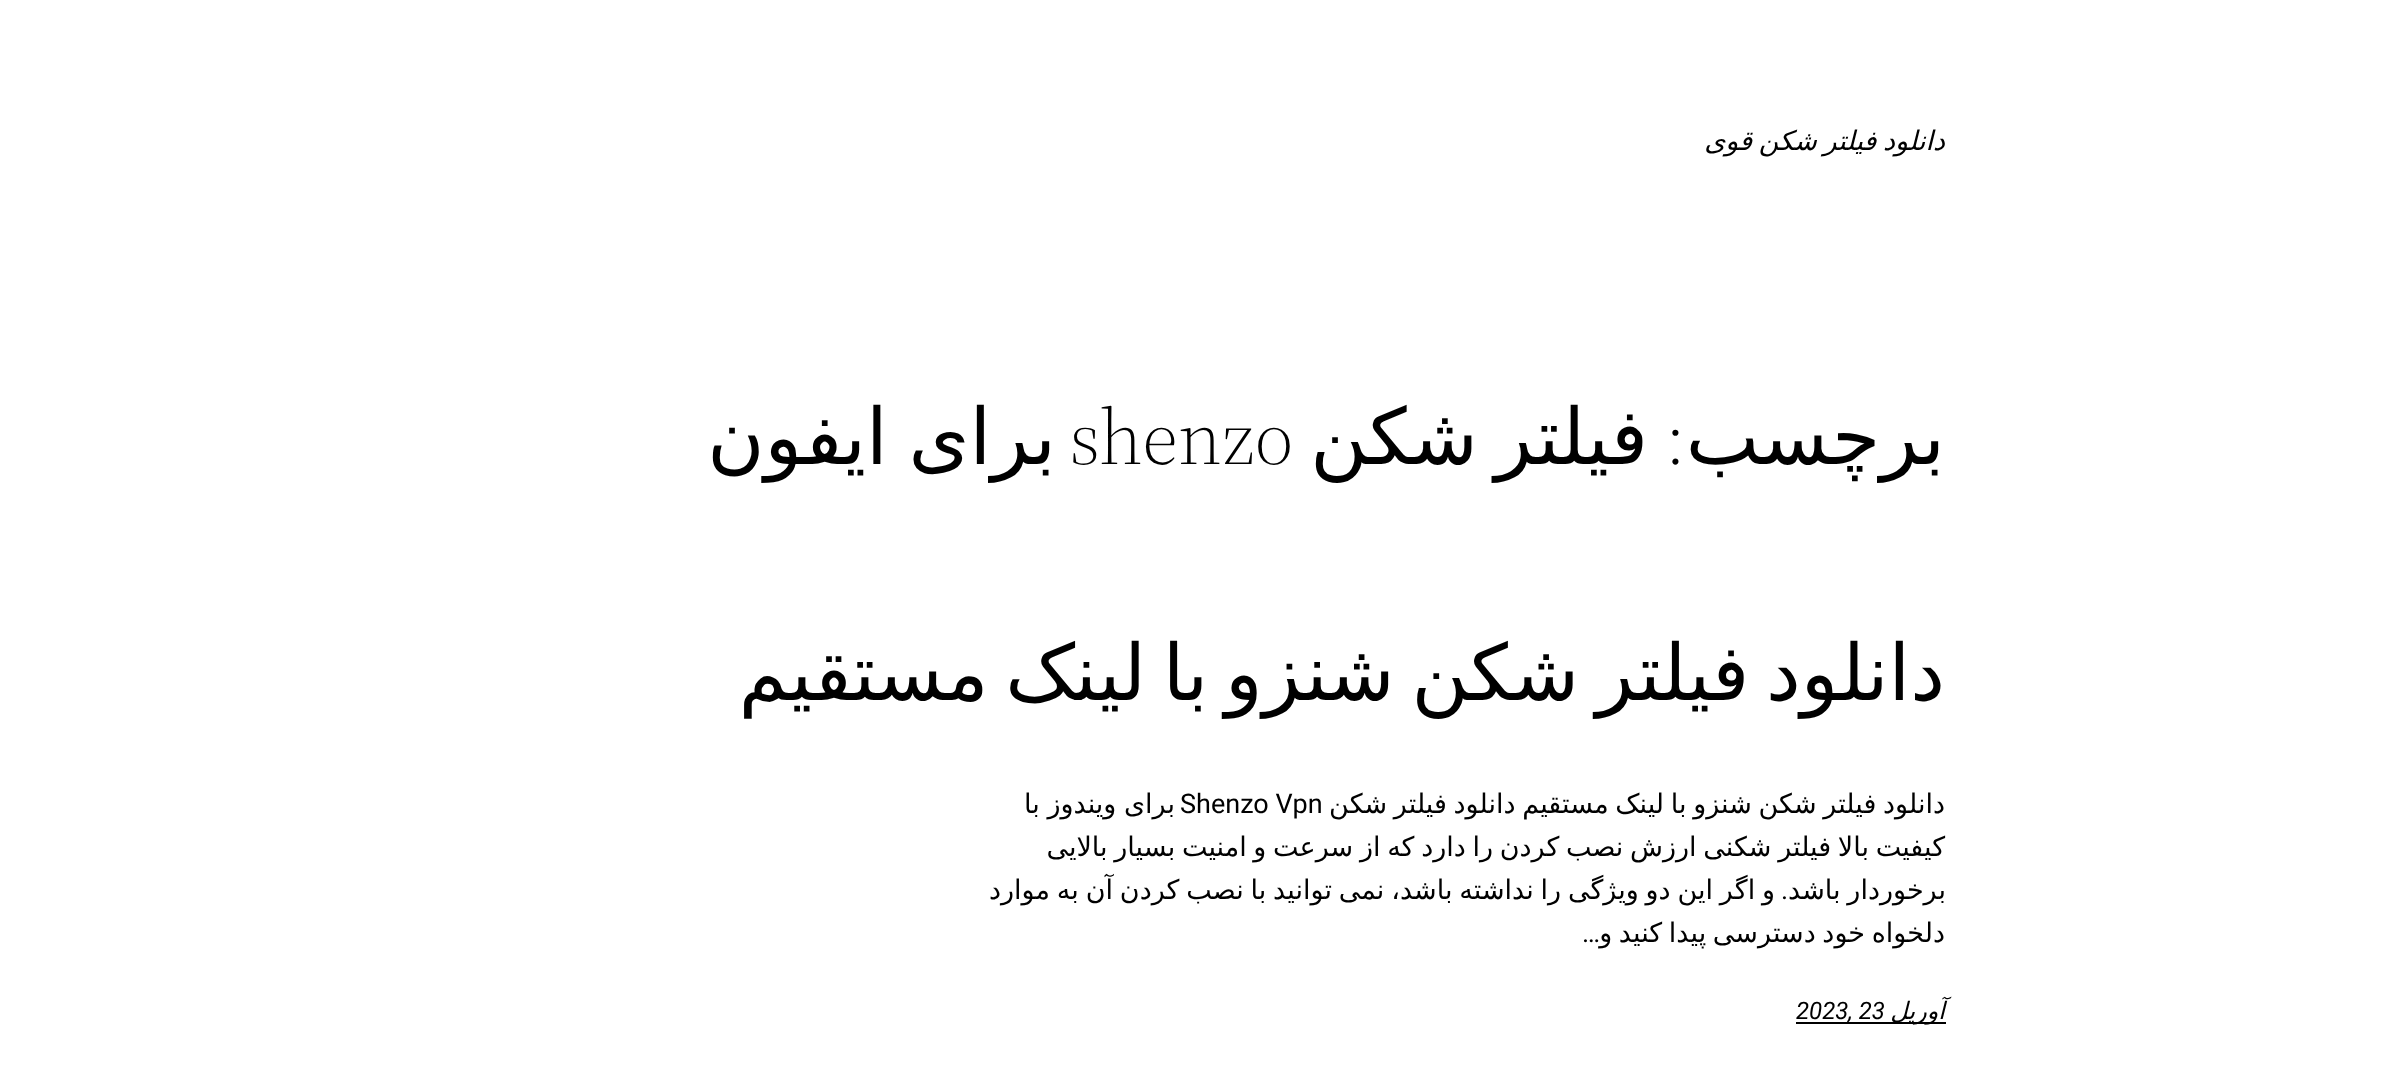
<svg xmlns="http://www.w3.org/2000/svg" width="2390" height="1085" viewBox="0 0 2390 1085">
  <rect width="100%" height="100%" fill="#ffffff"/>
  <text x="1945" y="150" word-spacing="-2" font-family="DejaVu Sans" font-size="27" font-style="italic" direction="rtl" fill="#000000">دانلود فیلتر شکن قوی</text>
  <text x="1945" y="464" font-family="DejaVu Sans" font-size="78" direction="rtl" fill="#000000">برچسب</text>
  <text x="1686" y="464" font-family="'Source Serif 4'" font-size="78" font-weight="300" direction="rtl" fill="#000000">:</text>
  <text x="1648" y="464" word-spacing="-8" font-family="DejaVu Sans" font-size="78" direction="rtl" fill="#000000">فیلتر شکن</text>
  <text x="1069" y="464" font-family="'Source Serif 4'" font-size="78" font-weight="300" fill="#000000">shenzo</text>
  <text x="1056" y="464" word-spacing="-4" font-family="DejaVu Sans" font-size="78" direction="rtl" fill="#000000">برای ایفون</text>
  <text x="1945" y="700" word-spacing="-8" font-family="DejaVu Sans" font-size="78" direction="rtl" fill="#000000">دانلود فیلتر شکن شنزو با لینک مستقیم</text>
  <text x="1945" y="813" word-spacing="-1.9" font-family="DejaVu Sans" font-size="27" direction="rtl" fill="#000000">دانلود فیلتر شکن شنزو با لینک مستقیم دانلود فیلتر شکن</text>
  <text x="1180" y="813" font-family="Roboto" font-size="27" fill="#000000">Shenzo Vpn</text>
  <text x="1175" y="813" word-spacing="-1" font-family="DejaVu Sans" font-size="27" direction="rtl" fill="#000000">برای ویندوز با</text>
  <text x="1945" y="856" word-spacing="-1.9" font-family="DejaVu Sans" font-size="27" direction="rtl" fill="#000000">کیفیت بالا فیلتر شکنی ارزش نصب کردن را دارد که از سرعت و امنیت بسیار بالایی</text>
  <text x="1946" y="899" word-spacing="-1.75" font-family="DejaVu Sans" font-size="27" direction="rtl" fill="#000000">برخوردار باشد</text>
  <text x="1775" y="899" word-spacing="-1.75" font-family="DejaVu Sans" font-size="27" direction="rtl" fill="#000000">و اگر این دو ویژگی را نداشته باشد، نمی توانید با نصب کردن آن به موارد</text>
  <text x="1788" y="899" font-family="Roboto" font-size="27" direction="rtl" fill="#000000">.</text>
  <text x="1945" y="942" word-spacing="-1.9" font-family="DejaVu Sans" font-size="27" direction="rtl" fill="#000000">دلخواه خود دسترسی پیدا کنید و</text>
  <text x="1600" y="942" font-family="Roboto" font-size="27" direction="rtl" fill="#000000">…</text>
  <rect x="1796" y="1022" width="150" height="2" fill="#000000"/>
  <text x="1945" y="1019" font-family="DejaVu Sans" font-size="24" font-style="italic" direction="rtl" fill="#000000">آوریل</text>
  <text x="1796" y="1019" font-family="Roboto" font-size="24" font-style="italic" fill="#000000">2023, 23</text>
</svg>
